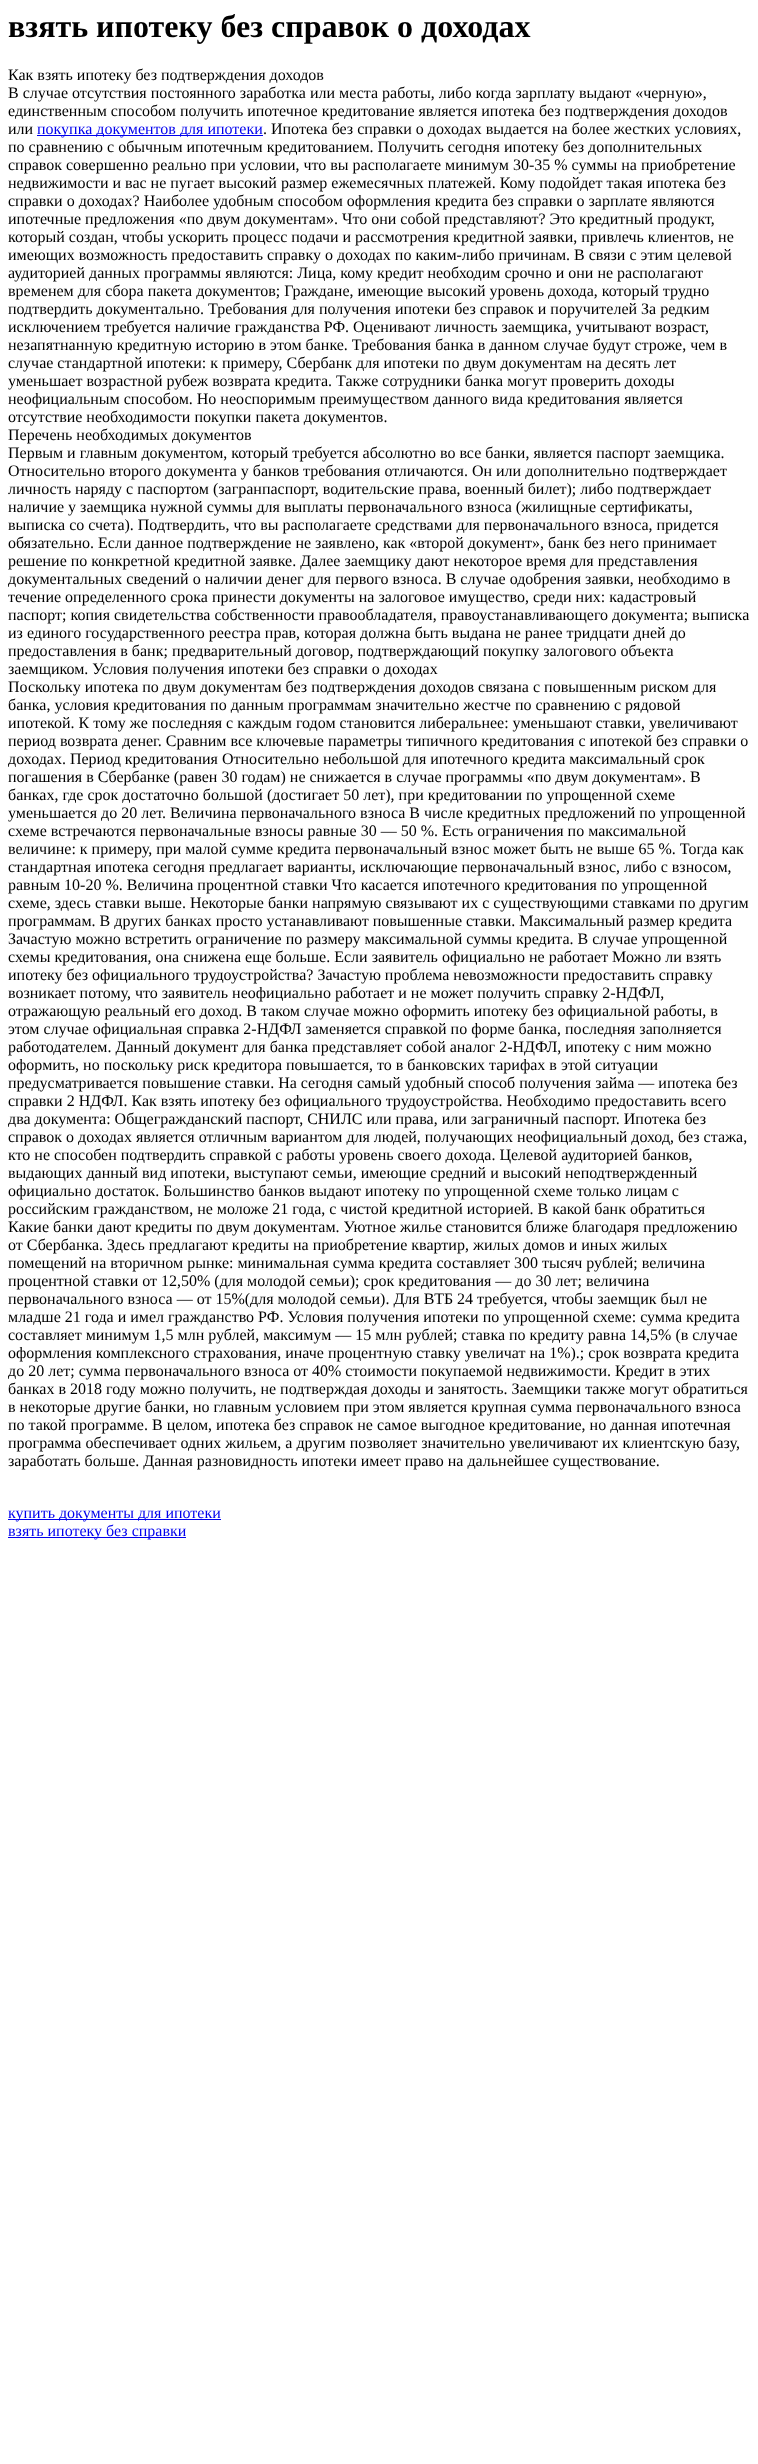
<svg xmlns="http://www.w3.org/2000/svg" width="758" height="2464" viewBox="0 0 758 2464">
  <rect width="100%" height="100%" fill="#ffffff"/>
  <text x="8" y="37" font-family="Liberation Serif" font-size="32" font-weight="bold" fill="#000000">взять ипотеку без справок о доходах</text>
  <text x="8" y="80" font-family="Liberation Serif" font-size="16" fill="#000000">Как взять ипотеку без подтверждения доходов</text>
  <text x="8" y="98" font-family="Liberation Serif" font-size="16" fill="#000000">В случае отсутствия постоянного заработка или места работы, либо когда зарплату выдают «черную»,</text>
  <text x="8" y="116" font-family="Liberation Serif" font-size="16" fill="#000000">единственным способом получить ипотечное кредитование является ипотека без подтверждения доходов</text>
  <text x="8" y="134" font-family="Liberation Serif" font-size="16" fill="#000000">или</text>
  <rect x="37" y="135" width="226" height="1" fill="#0000ee"/>
  <text x="37" y="134" font-family="Liberation Serif" font-size="16" fill="#0000ee">покупка документов для ипотеки</text>
  <text x="263" y="134" font-family="Liberation Serif" font-size="16" fill="#000000">. Ипотека без справки о доходах выдается на более жестких условиях,</text>
  <text x="8" y="152" font-family="Liberation Serif" font-size="16" fill="#000000">по сравнению с обычным ипотечным кредитованием. Получить сегодня ипотеку без дополнительных</text>
  <text x="8" y="170" font-family="Liberation Serif" font-size="16" fill="#000000">справок совершенно реально при условии, что вы располагаете минимум 30-35 % суммы на приобретение</text>
  <text x="8" y="188" font-family="Liberation Serif" font-size="16" fill="#000000">недвижимости и вас не пугает высокий размер ежемесячных платежей. Кому подойдет такая ипотека без</text>
  <text x="8" y="206" font-family="Liberation Serif" font-size="16" fill="#000000">справки о доходах? Наиболее удобным способом оформления кредита без справки о зарплате являются</text>
  <text x="8" y="224" font-family="Liberation Serif" font-size="16" fill="#000000">ипотечные предложения «по двум документам». Что они собой представляют? Это кредитный продукт,</text>
  <text x="8" y="242" font-family="Liberation Serif" font-size="16" fill="#000000">который создан, чтобы ускорить процесс подачи и рассмотрения кредитной заявки, привлечь клиентов, не</text>
  <text x="8" y="260" font-family="Liberation Serif" font-size="16" fill="#000000">имеющих возможность предоставить справку о доходах по каким-либо причинам. В связи с этим целевой</text>
  <text x="8" y="278" font-family="Liberation Serif" font-size="16" fill="#000000">аудиторией данных программы являются: Лица, кому кредит необходим срочно и они не располагают</text>
  <text x="8" y="296" font-family="Liberation Serif" font-size="16" fill="#000000">временем для сбора пакета документов; Граждане, имеющие высокий уровень дохода, который трудно</text>
  <text x="8" y="314" font-family="Liberation Serif" font-size="16" fill="#000000">подтвердить документально. Требования для получения ипотеки без справок и поручителей За редким</text>
  <text x="8" y="332" font-family="Liberation Serif" font-size="16" fill="#000000">исключением требуется наличие гражданства РФ. Оценивают личность заемщика, учитывают возраст,</text>
  <text x="8" y="350" font-family="Liberation Serif" font-size="16" fill="#000000">незапятнанную кредитную историю в этом банке. Требования банка в данном случае будут строже, чем в</text>
  <text x="8" y="368" font-family="Liberation Serif" font-size="16" fill="#000000">случае стандартной ипотеки: к примеру, Сбербанк для ипотеки по двум документам на десять лет</text>
  <text x="8" y="386" font-family="Liberation Serif" font-size="16" fill="#000000">уменьшает возрастной рубеж возврата кредита. Также сотрудники банка могут проверить доходы</text>
  <text x="8" y="404" font-family="Liberation Serif" font-size="16" fill="#000000">неофициальным способом. Но неоспоримым преимуществом данного вида кредитования является</text>
  <text x="8" y="422" font-family="Liberation Serif" font-size="16" fill="#000000">отсутствие необходимости покупки пакета документов.</text>
  <text x="8" y="440" font-family="Liberation Serif" font-size="16" fill="#000000">Перечень необходимых документов</text>
  <text x="8" y="458" font-family="Liberation Serif" font-size="16" fill="#000000">Первым и главным документом, который требуется абсолютно во все банки, является паспорт заемщика.</text>
  <text x="8" y="476" font-family="Liberation Serif" font-size="16" fill="#000000">Относительно второго документа у банков требования отличаются. Он или дополнительно подтверждает</text>
  <text x="8" y="494" font-family="Liberation Serif" font-size="16" fill="#000000">личность наряду с паспортом (загранпаспорт, водительские права, военный билет); либо подтверждает</text>
  <text x="8" y="512" font-family="Liberation Serif" font-size="16" fill="#000000">наличие у заемщика нужной суммы для выплаты первоначального взноса (жилищные сертификаты,</text>
  <text x="8" y="530" font-family="Liberation Serif" font-size="16" fill="#000000">выписка со счета). Подтвердить, что вы располагаете средствами для первоначального взноса, придется</text>
  <text x="8" y="548" font-family="Liberation Serif" font-size="16" fill="#000000">обязательно. Если данное подтверждение не заявлено, как «второй документ», банк без него принимает</text>
  <text x="8" y="566" font-family="Liberation Serif" font-size="16" fill="#000000">решение по конкретной кредитной заявке. Далее заемщику дают некоторое время для представления</text>
  <text x="8" y="584" font-family="Liberation Serif" font-size="16" fill="#000000">документальных сведений о наличии денег для первого взноса. В случае одобрения заявки, необходимо в</text>
  <text x="8" y="602" font-family="Liberation Serif" font-size="16" fill="#000000">течение определенного срока принести документы на залоговое имущество, среди них: кадастровый</text>
  <text x="8" y="620" font-family="Liberation Serif" font-size="16" fill="#000000">паспорт; копия свидетельства собственности правообладателя, правоустанавливающего документа; выписка</text>
  <text x="8" y="638" font-family="Liberation Serif" font-size="16" fill="#000000">из единого государственного реестра прав, которая должна быть выдана не ранее тридцати дней до</text>
  <text x="8" y="656" font-family="Liberation Serif" font-size="16" fill="#000000">предоставления в банк; предварительный договор, подтверждающий покупку залогового объекта</text>
  <text x="8" y="674" font-family="Liberation Serif" font-size="16" fill="#000000">заемщиком. Условия получения ипотеки без справки о доходах</text>
  <text x="8" y="692" font-family="Liberation Serif" font-size="16" fill="#000000">Поскольку ипотека по двум документам без подтверждения доходов связана с повышенным риском для</text>
  <text x="8" y="710" font-family="Liberation Serif" font-size="16" fill="#000000">банка, условия кредитования по данным программам значительно жестче по сравнению с рядовой</text>
  <text x="8" y="728" font-family="Liberation Serif" font-size="16" fill="#000000">ипотекой. К тому же последняя с каждым годом становится либеральнее: уменьшают ставки, увеличивают</text>
  <text x="8" y="746" font-family="Liberation Serif" font-size="16" fill="#000000">период возврата денег. Сравним все ключевые параметры типичного кредитования с ипотекой без справки о</text>
  <text x="8" y="764" font-family="Liberation Serif" font-size="16" fill="#000000">доходах. Период кредитования Относительно небольшой для ипотечного кредита максимальный срок</text>
  <text x="8" y="782" font-family="Liberation Serif" font-size="16" fill="#000000">погашения в Сбербанке (равен 30 годам) не снижается в случае программы «по двум документам». В</text>
  <text x="8" y="800" font-family="Liberation Serif" font-size="16" fill="#000000">банках, где срок достаточно большой (достигает 50 лет), при кредитовании по упрощенной схеме</text>
  <text x="8" y="818" font-family="Liberation Serif" font-size="16" fill="#000000">уменьшается до 20 лет. Величина первоначального взноса В числе кредитных предложений по упрощенной</text>
  <text x="8" y="836" font-family="Liberation Serif" font-size="16" fill="#000000">схеме встречаются первоначальные взносы равные 30 — 50 %. Есть ограничения по максимальной</text>
  <text x="8" y="854" font-family="Liberation Serif" font-size="16" fill="#000000">величине: к примеру, при малой сумме кредита первоначальный взнос может быть не выше 65 %. Тогда как</text>
  <text x="8" y="872" font-family="Liberation Serif" font-size="16" fill="#000000">стандартная ипотека сегодня предлагает варианты, исключающие первоначальный взнос, либо с взносом,</text>
  <text x="8" y="890" font-family="Liberation Serif" font-size="16" fill="#000000">равным 10-20 %. Величина процентной ставки Что касается ипотечного кредитования по упрощенной</text>
  <text x="8" y="908" font-family="Liberation Serif" font-size="16" fill="#000000">схеме, здесь ставки выше. Некоторые банки напрямую связывают их с существующими ставками по другим</text>
  <text x="8" y="926" font-family="Liberation Serif" font-size="16" fill="#000000">программам. В других банках просто устанавливают повышенные ставки. Максимальный размер кредита</text>
  <text x="8" y="944" font-family="Liberation Serif" font-size="16" fill="#000000">Зачастую можно встретить ограничение по размеру максимальной суммы кредита. В случае упрощенной</text>
  <text x="8" y="962" font-family="Liberation Serif" font-size="16" fill="#000000">схемы кредитования, она снижена еще больше. Если заявитель официально не работает Можно ли взять</text>
  <text x="8" y="980" font-family="Liberation Serif" font-size="16" fill="#000000">ипотеку без официального трудоустройства? Зачастую проблема невозможности предоставить справку</text>
  <text x="8" y="998" font-family="Liberation Serif" font-size="16" fill="#000000">возникает потому, что заявитель неофициально работает и не может получить справку 2-НДФЛ,</text>
  <text x="8" y="1016" font-family="Liberation Serif" font-size="16" fill="#000000">отражающую реальный его доход. В таком случае можно оформить ипотеку без официальной работы, в</text>
  <text x="8" y="1034" font-family="Liberation Serif" font-size="16" fill="#000000">этом случае официальная справка 2-НДФЛ заменяется справкой по форме банка, последняя заполняется</text>
  <text x="8" y="1052" font-family="Liberation Serif" font-size="16" fill="#000000">работодателем. Данный документ для банка представляет собой аналог 2-НДФЛ, ипотеку с ним можно</text>
  <text x="8" y="1070" font-family="Liberation Serif" font-size="16" fill="#000000">оформить, но поскольку риск кредитора повышается, то в банковских тарифах в этой ситуации</text>
  <text x="8" y="1088" font-family="Liberation Serif" font-size="16" fill="#000000">предусматривается повышение ставки. На сегодня самый удобный способ получения займа — ипотека без</text>
  <text x="8" y="1106" font-family="Liberation Serif" font-size="16" fill="#000000">справки 2 НДФЛ. Как взять ипотеку без официального трудоустройства. Необходимо предоставить всего</text>
  <text x="8" y="1124" font-family="Liberation Serif" font-size="16" fill="#000000">два документа: Общегражданский паспорт, СНИЛС или права, или заграничный паспорт. Ипотека без</text>
  <text x="8" y="1142" font-family="Liberation Serif" font-size="16" fill="#000000">справок о доходах является отличным вариантом для людей, получающих неофициальный доход, без стажа,</text>
  <text x="8" y="1160" font-family="Liberation Serif" font-size="16" fill="#000000">кто не способен подтвердить справкой с работы уровень своего дохода. Целевой аудиторией банков,</text>
  <text x="8" y="1178" font-family="Liberation Serif" font-size="16" fill="#000000">выдающих данный вид ипотеки, выступают семьи, имеющие средний и высокий неподтвержденный</text>
  <text x="8" y="1196" font-family="Liberation Serif" font-size="16" fill="#000000">официально достаток. Большинство банков выдают ипотеку по упрощенной схеме только лицам с</text>
  <text x="8" y="1214" font-family="Liberation Serif" font-size="16" fill="#000000">российским гражданством, не моложе 21 года, с чистой кредитной историей. В какой банк обратиться</text>
  <text x="8" y="1232" font-family="Liberation Serif" font-size="16" fill="#000000">Какие банки дают кредиты по двум документам. Уютное жилье становится ближе благодаря предложению</text>
  <text x="8" y="1250" font-family="Liberation Serif" font-size="16" fill="#000000">от Сбербанка. Здесь предлагают кредиты на приобретение квартир, жилых домов и иных жилых</text>
  <text x="8" y="1268" font-family="Liberation Serif" font-size="16" fill="#000000">помещений на вторичном рынке: минимальная сумма кредита составляет 300 тысяч рублей; величина</text>
  <text x="8" y="1286" font-family="Liberation Serif" font-size="16" fill="#000000">процентной ставки от 12,50% (для молодой семьи); срок кредитования — до 30 лет; величина</text>
  <text x="8" y="1304" font-family="Liberation Serif" font-size="16" fill="#000000">первоначального взноса — от 15%(для молодой семьи). Для ВТБ 24 требуется, чтобы заемщик был не</text>
  <text x="8" y="1322" font-family="Liberation Serif" font-size="16" fill="#000000">младше 21 года и имел гражданство РФ. Условия получения ипотеки по упрощенной схеме: сумма кредита</text>
  <text x="8" y="1340" font-family="Liberation Serif" font-size="16" fill="#000000">составляет минимум 1,5 млн рублей, максимум — 15 млн рублей; ставка по кредиту равна 14,5% (в случае</text>
  <text x="8" y="1358" font-family="Liberation Serif" font-size="16" fill="#000000">оформления комплексного страхования, иначе процентную ставку увеличат на 1%).; срок возврата кредита</text>
  <text x="8" y="1376" font-family="Liberation Serif" font-size="16" fill="#000000">до 20 лет; сумма первоначального взноса от 40% стоимости покупаемой недвижимости. Кредит в этих</text>
  <text x="8" y="1394" font-family="Liberation Serif" font-size="16" fill="#000000">банках в 2018 году можно получить, не подтверждая доходы и занятость. Заемщики также могут обратиться</text>
  <text x="8" y="1412" font-family="Liberation Serif" font-size="16" fill="#000000">в некоторые другие банки, но главным условием при этом является крупная сумма первоначального взноса</text>
  <text x="8" y="1430" font-family="Liberation Serif" font-size="16" fill="#000000">по такой программе. В целом, ипотека без справок не самое выгодное кредитование, но данная ипотечная</text>
  <text x="8" y="1448" font-family="Liberation Serif" font-size="16" fill="#000000">программа обеспечивает одних жильем, а другим позволяет значительно увеличивают их клиентскую базу,</text>
  <text x="8" y="1466" font-family="Liberation Serif" font-size="16" fill="#000000">заработать больше. Данная разновидность ипотеки имеет право на дальнейшее существование.</text>
  <rect x="8" y="1519" width="213" height="1" fill="#0000ee"/>
  <text x="8" y="1518" font-family="Liberation Serif" font-size="16" fill="#0000ee">купить документы для ипотеки</text>
  <rect x="8" y="1537" width="178" height="1" fill="#0000ee"/>
  <text x="8" y="1536" font-family="Liberation Serif" font-size="16" fill="#0000ee">взять ипотеку без справки</text>
</svg>
